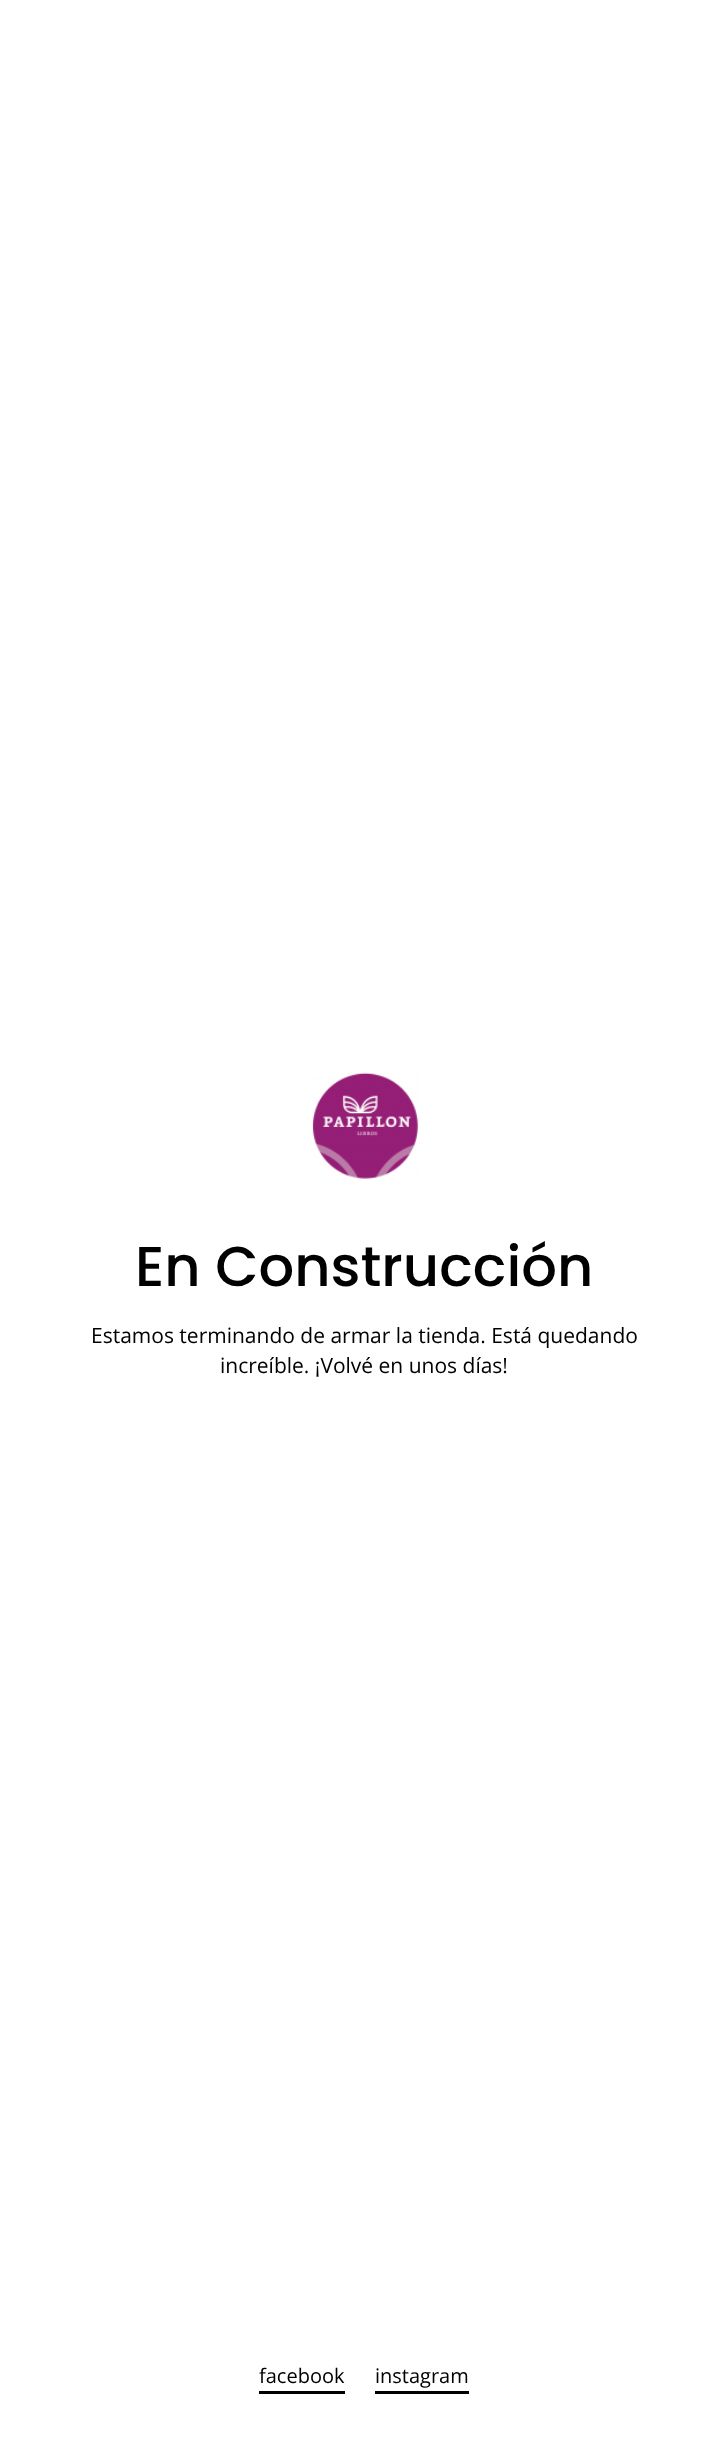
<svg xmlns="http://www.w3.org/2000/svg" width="727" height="2449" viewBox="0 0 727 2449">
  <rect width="100%" height="100%" fill="#ffffff"/>
  <image x="312" y="1072" width="107" height="107" href="img1.png"/>
  <text x="135" y="1286" font-family="Poppins" font-size="56" font-weight="500" fill="#000000">En Construcción</text>
  <text x="91" y="1343" font-family="Open Sans" font-size="21" fill="#000000">Estamos terminando de armar la tienda. Está quedando</text>
  <text x="220" y="1373" font-family="Open Sans" font-size="21" fill="#000000">increíble. ¡Volvé en unos días!</text>
  <text x="259" y="2383" font-family="Open Sans" font-size="20" fill="#000000">facebook</text>
  <rect x="259" y="2391" width="86" height="3" fill="#000000"/>
  <text x="375" y="2383" font-family="Open Sans" font-size="20" fill="#000000">instagram</text>
  <rect x="375" y="2391" width="94" height="3" fill="#000000"/>
</svg>
